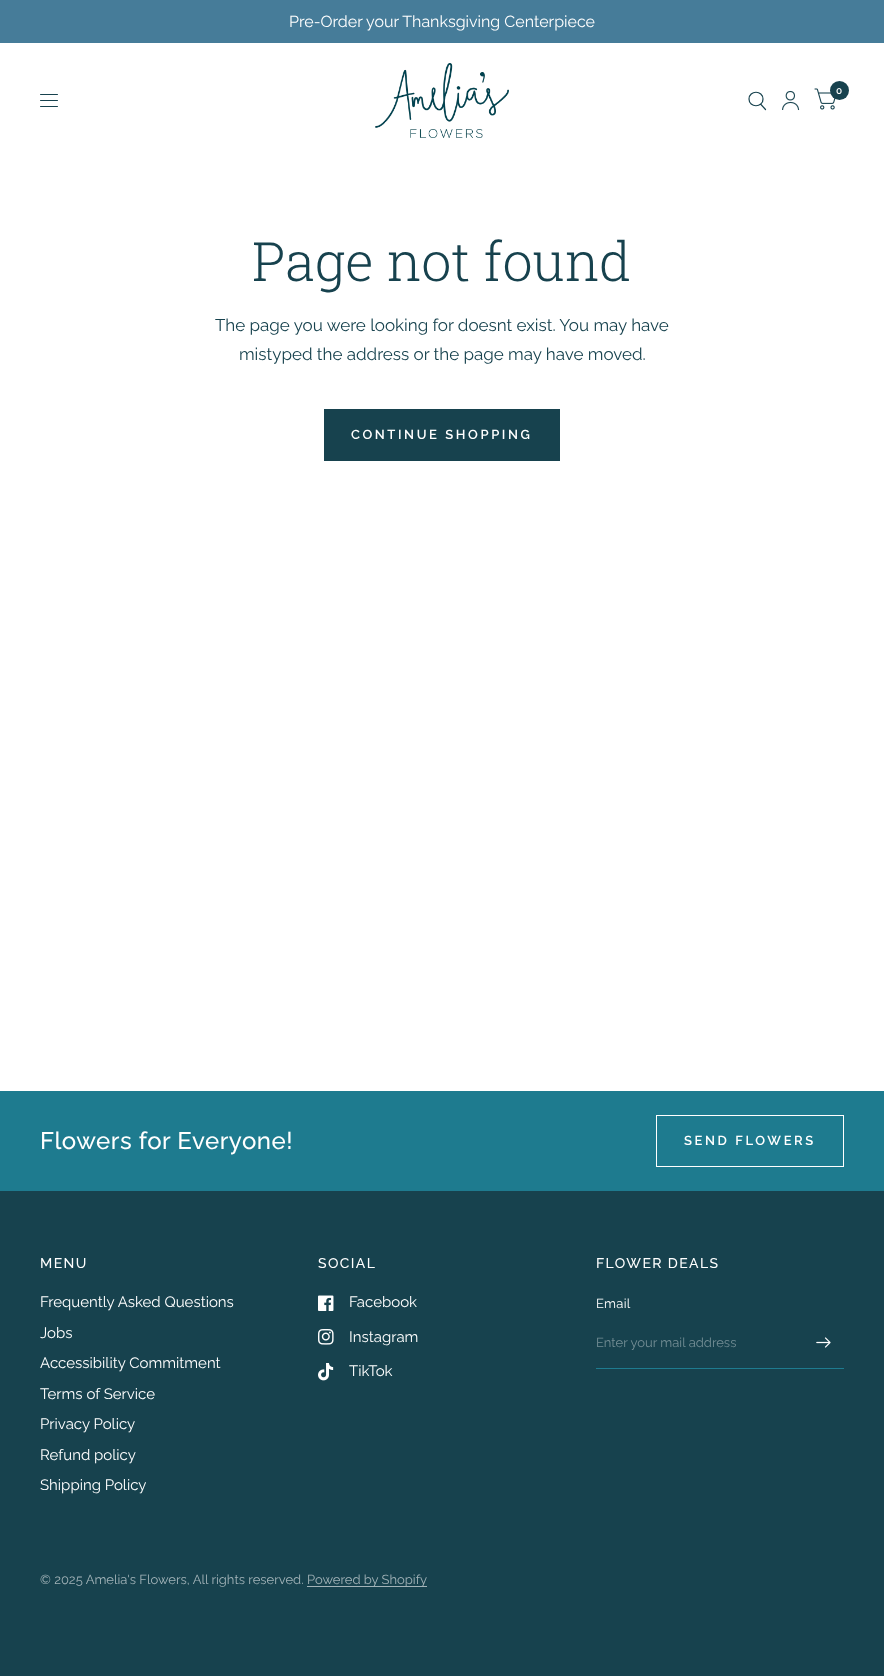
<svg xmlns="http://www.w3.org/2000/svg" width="884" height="1676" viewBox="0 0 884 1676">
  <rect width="100%" height="100%" fill="#ffffff"/>
  <rect x="0" y="0" width="884" height="43" fill="#467c99"/>
  <text x="289" y="27" font-family="Raleway" font-size="16" fill="#ffffff">Pre-Order your Thanksgiving Centerpiece</text>
  <image x="375" y="63" width="134" height="75" href="img1.png"/>
  <path d="M761 104.5L765.5 109.5M763 99C763 108 749 108 749 99C749 90 763 90 763 99Z" fill="none" stroke="#17424e" stroke-width="1.2" stroke-linecap="round" stroke-linejoin="round"/>
  <image x="782" y="90" width="18" height="21" href="img2.png"/>
  <image x="814" y="88" width="22" height="22" href="img3.png"/>
  <circle cx="839.5" cy="90.5" r="9.5" fill="#17424e"/>
  <text x="836" y="94" font-family="Raleway" font-size="10" font-weight="600" fill="#ffffff">0</text>
  <rect x="40" y="94" width="18" height="1" rx="0.5" fill="#17424e"/>
  <rect x="40" y="100" width="18" height="1" rx="0.5" fill="#17424e"/>
  <rect x="40" y="106" width="18" height="1" rx="0.5" fill="#17424e"/>
  <text x="252" y="281" font-family="Roboto Slab" font-size="54" font-weight="300" fill="#17424e">Page not found</text>
  <text x="215" y="331" font-family="Raleway" font-size="17" fill="#17424e">The page you were looking for doesnt exist. You may have</text>
  <text x="239" y="360" font-family="Raleway" font-size="17" fill="#17424e">mistyped the address or the page may have moved.</text>
  <rect x="324" y="409" width="236" height="52" fill="#17424e"/>
  <text x="351" y="439" font-family="Raleway" font-size="13" font-weight="600" letter-spacing="2.6" fill="#ffffff">CONTINUE SHOPPING</text>
  <rect x="0" y="1091" width="884" height="100" fill="#1e7b8f"/>
  <text x="40" y="1149" font-family="Raleway" font-size="24" font-weight="500" letter-spacing="0.5" fill="#ffffff">Flowers for Everyone!</text>
  <rect x="656.5" y="1115.5" width="187" height="51" fill="none" stroke="#ffffff"/>
  <text x="684" y="1145" font-family="Raleway" font-size="13" font-weight="600" letter-spacing="2.6" fill="#ffffff">SEND FLOWERS</text>
  <rect x="0" y="1191" width="884" height="485" fill="#17424e"/>
  <text x="40" y="1268" font-family="Raleway" font-size="14" font-weight="500" letter-spacing="1.4" fill="#ffffff">MENU</text>
  <text x="40" y="1307" font-family="Raleway" font-size="15" fill="#ffffff">Frequently Asked Questions</text>
  <text x="40" y="1338" font-family="Raleway" font-size="15" fill="#ffffff">Jobs</text>
  <text x="40" y="1368" font-family="Raleway" font-size="15" fill="#ffffff">Accessibility Commitment</text>
  <text x="40" y="1399" font-family="Raleway" font-size="15" fill="#ffffff">Terms of Service</text>
  <text x="40" y="1429" font-family="Raleway" font-size="15" fill="#ffffff">Privacy Policy</text>
  <text x="40" y="1460" font-family="Raleway" font-size="15" fill="#ffffff">Refund policy</text>
  <text x="40" y="1490" font-family="Raleway" font-size="15" fill="#ffffff">Shipping Policy</text>
  <text x="318" y="1268" font-family="Raleway" font-size="14" font-weight="500" letter-spacing="1.4" fill="#ffffff">SOCIAL</text>
  <image x="318" y="1295" width="16" height="16" href="img4.png"/>
  <text x="349" y="1307" font-family="Raleway" font-size="15" fill="#ffffff">Facebook</text>
  <image x="318" y="1329" width="16" height="16" href="img5.png"/>
  <text x="349" y="1342" font-family="Raleway" font-size="15" fill="#ffffff">Instagram</text>
  <image x="318" y="1363" width="16" height="18" href="img6.png"/>
  <text x="349" y="1376" font-family="Raleway" font-size="15" fill="#ffffff">TikTok</text>
  <text x="596" y="1268" font-family="Raleway" font-size="14" font-weight="500" letter-spacing="1.4" fill="#ffffff">FLOWER DEALS</text>
  <text x="596" y="1308" font-family="Raleway" font-size="13" letter-spacing="0.25" fill="#ffffff">Email</text>
  <rect x="596" y="1368" width="248" height="1" fill="#1e7b8f"/>
  <text x="596" y="1347" font-family="Raleway" font-size="13" fill="#748e95">Enter your mail address</text>
  <image x="816" y="1337" width="15" height="11" href="img7.png"/>
  <text x="40" y="1584" font-family="Raleway" font-size="13" fill="#a2b3b8">© 2025 Amelia's Flowers, All rights reserved.</text>
  <rect x="307" y="1586" width="120" height="1" fill="#a2b3b8"/>
  <text x="307" y="1584" font-family="Raleway" font-size="13" fill="#a2b3b8">Powered by Shopify</text>
</svg>
